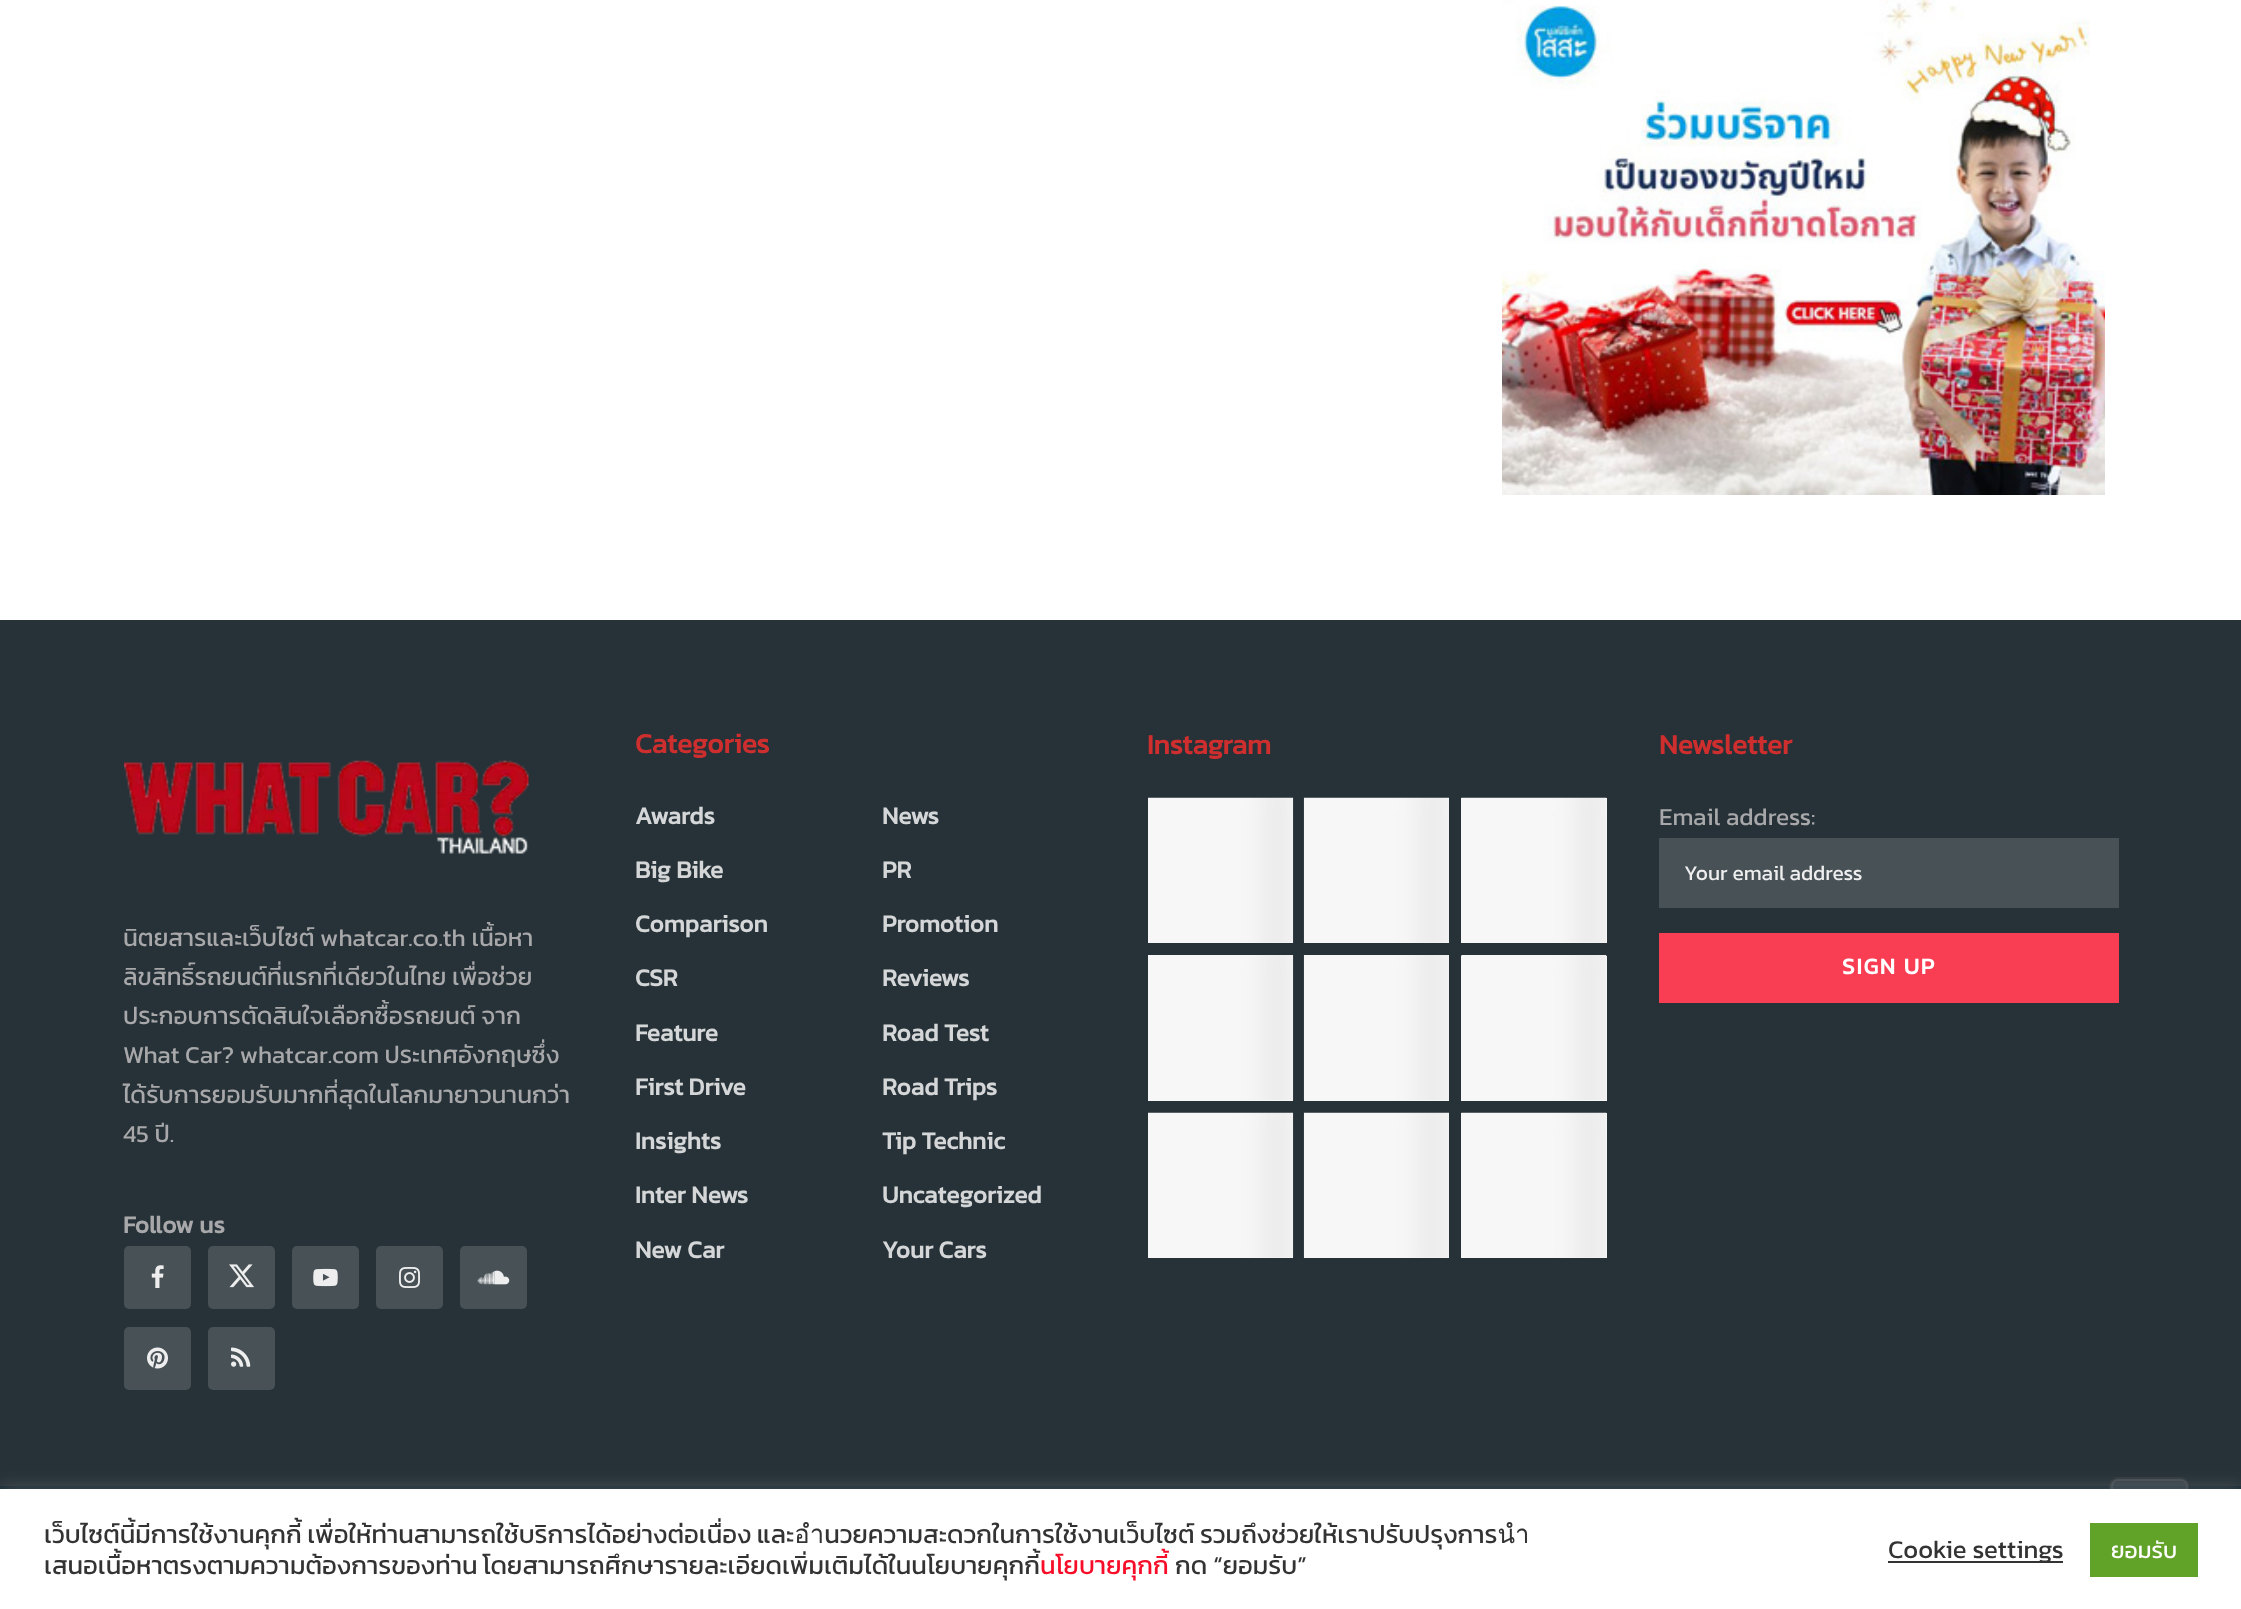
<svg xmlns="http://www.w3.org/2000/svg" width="2241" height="1609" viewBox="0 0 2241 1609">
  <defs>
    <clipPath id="clip1"><path d="M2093 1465H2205V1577H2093ZM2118 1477H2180C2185 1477 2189 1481 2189 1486V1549C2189 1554 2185 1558 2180 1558H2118C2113 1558 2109 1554 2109 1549V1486C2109 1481 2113 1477 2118 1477Z" clip-rule="evenodd"/></clipPath>
    <filter id="blur1" x="-50%" y="-200%" width="200%" height="500%"><feGaussianBlur stdDeviation="5"/></filter>
    <filter id="blur2" x="-50%" y="-200%" width="200%" height="500%"><feGaussianBlur stdDeviation="9"/></filter>
  </defs>
  <rect width="100%" height="100%" fill="#ffffff"/>
  <image x="1502" y="0" width="603" height="495" href="img1.png"/>
  <rect x="0" y="620" width="2241" height="866" fill="#263238"/>
  <text x="635" y="753" font-family="Kanit" font-size="28" font-weight="bold" fill="#cf2e2e">Categories</text>
  <text x="635" y="824" font-family="Kanit" font-size="24.5" font-weight="bold" fill="#d4d6d7">Awards</text>
  <text x="882" y="824" font-family="Kanit" font-size="24.5" font-weight="bold" fill="#d4d6d7">News</text>
  <text x="635" y="878" font-family="Kanit" font-size="24.5" font-weight="bold" fill="#d4d6d7">Big Bike</text>
  <text x="882" y="878" font-family="Kanit" font-size="24.5" font-weight="bold" fill="#d4d6d7">PR</text>
  <text x="635" y="932" font-family="Kanit" font-size="24.5" font-weight="bold" fill="#d4d6d7">Comparison</text>
  <text x="882" y="932" font-family="Kanit" font-size="24.5" font-weight="bold" fill="#d4d6d7">Promotion</text>
  <text x="635" y="986" font-family="Kanit" font-size="24.5" font-weight="bold" fill="#d4d6d7">CSR</text>
  <text x="882" y="986" font-family="Kanit" font-size="24.5" font-weight="bold" fill="#d4d6d7">Reviews</text>
  <text x="635" y="1041" font-family="Kanit" font-size="24.5" font-weight="bold" fill="#d4d6d7">Feature</text>
  <text x="882" y="1041" font-family="Kanit" font-size="24.5" font-weight="bold" fill="#d4d6d7">Road Test</text>
  <text x="635" y="1095" font-family="Kanit" font-size="24.5" font-weight="bold" fill="#d4d6d7">First Drive</text>
  <text x="882" y="1095" font-family="Kanit" font-size="24.5" font-weight="bold" fill="#d4d6d7">Road Trips</text>
  <text x="635" y="1149" font-family="Kanit" font-size="24.5" font-weight="bold" fill="#d4d6d7">Insights</text>
  <text x="882" y="1149" font-family="Kanit" font-size="24.5" font-weight="bold" fill="#d4d6d7">Tip Technic</text>
  <text x="635" y="1203" font-family="Kanit" font-size="24.5" font-weight="bold" fill="#d4d6d7">Inter News</text>
  <text x="882" y="1203" font-family="Kanit" font-size="24.5" font-weight="bold" fill="#d4d6d7">Uncategorized</text>
  <text x="635" y="1258" font-family="Kanit" font-size="24.5" font-weight="bold" fill="#d4d6d7">New Car</text>
  <text x="882" y="1258" font-family="Kanit" font-size="24.5" font-weight="bold" fill="#d4d6d7">Your Cars</text>
  <text x="1147" y="754" font-family="Kanit" font-size="28" font-weight="bold" fill="#cf2e2e">Instagram</text>
  <rect x="1148" y="942" width="145" height="1" fill="#f7f7f7"/>
  <image x="1148" y="797" width="146" height="146" href="img2.png"/>
  <rect x="1304" y="942" width="145" height="1" fill="#f7f7f7"/>
  <image x="1303" y="797" width="146" height="146" href="img3.png"/>
  <rect x="1461" y="798" width="146" height="145" fill="#f7f7f7"/>
  <image x="1461" y="797" width="146" height="146" href="img4.png"/>
  <rect x="1148" y="1100" width="145" height="1" fill="#f7f7f7"/>
  <image x="1148" y="955" width="146" height="145" href="img5.png"/>
  <rect x="1304" y="1100" width="145" height="1" fill="#f7f7f7"/>
  <image x="1303" y="955" width="146" height="145" href="img6.png"/>
  <rect x="1461" y="956" width="146" height="145" fill="#f7f7f7"/>
  <image x="1461" y="955" width="146" height="145" href="img7.png"/>
  <rect x="1148" y="1257" width="145" height="1" fill="#f7f7f7"/>
  <image x="1148" y="1112" width="146" height="146" href="img2.png"/>
  <rect x="1304" y="1257" width="145" height="1" fill="#f7f7f7"/>
  <image x="1303" y="1112" width="146" height="146" href="img3.png"/>
  <rect x="1461" y="1113" width="146" height="145" fill="#f7f7f7"/>
  <image x="1461" y="1112" width="146" height="146" href="img4.png"/>
  <text x="1659" y="754" font-family="Kanit" font-size="28" font-weight="bold" fill="#cf2e2e">Newsletter</text>
  <text x="1659" y="825" font-family="Kanit" font-size="24.5" fill="#a8a8aa">Email address:</text>
  <rect x="1659" y="838" width="460" height="70" fill="#475156"/>
  <text x="1684" y="880" font-family="Kanit" font-size="21" fill="#eeeeee">Your email address</text>
  <rect x="1659" y="933" width="460" height="70" fill="#f93d53"/>
  <text x="1842" y="974" font-family="Kanit" font-size="22.75" font-weight="bold" letter-spacing="1.75" fill="#ffffff">SIGN UP</text>
  <image x="124" y="760" width="405" height="94" href="img8.png"/>
  <text x="123" y="946" font-family="Kanit" font-size="24.5" fill="#a8a8aa">นิตยสารและเว็บไซต์ whatcar.co.th เนื้อหา</text>
  <text x="123" y="985" font-family="Kanit" font-size="24.5" fill="#a8a8aa">ลิขสิทธิ์รถยนต์ที่แรกที่เดียวในไทย เพื่อช่วย</text>
  <text x="123" y="1024" font-family="Kanit" font-size="24.5" fill="#a8a8aa">ประกอบการตัดสินใจเลือกซื้อรถยนต์ จาก</text>
  <text x="123" y="1063" font-family="Kanit" font-size="24.5" fill="#a8a8aa">What Car? whatcar.com ประเทศอังกฤษซึ่ง</text>
  <text x="123" y="1103" font-family="Kanit" font-size="24.5" fill="#a8a8aa">ได้รับการยอมรับมากที่สุดในโลกมายาวนานกว่า</text>
  <text x="123" y="1142" font-family="Kanit" font-size="24.5" fill="#a8a8aa">45 ปี.</text>
  <text x="123" y="1233" font-family="Kanit" font-size="24.5" font-weight="bold" fill="#a8a8aa">Follow us</text>
  <rect x="124" y="1246" width="67" height="63" rx="5" fill="#475156"/>
  <image x="151" y="1265" width="13" height="23" href="img9.png"/>
  <rect x="208" y="1246" width="67" height="63" rx="5" fill="#475156"/>
  <image x="229" y="1264" width="25" height="24" href="img10.png"/>
  <rect x="292" y="1246" width="67" height="63" rx="5" fill="#475156"/>
  <image x="313" y="1268" width="25" height="19" href="img11.png"/>
  <rect x="376" y="1246" width="67" height="63" rx="5" fill="#475156"/>
  <image x="399" y="1267" width="21" height="21" href="img12.png"/>
  <rect x="460" y="1246" width="67" height="63" rx="5" fill="#475156"/>
  <image x="477" y="1270" width="33" height="15" href="img13.png"/>
  <rect x="124" y="1327" width="67" height="63" rx="5" fill="#475156"/>
  <image x="147" y="1347" width="21" height="22" href="img14.png"/>
  <rect x="208" y="1327" width="67" height="63" rx="5" fill="#475156"/>
  <image x="231" y="1347" width="20" height="20" href="img15.png"/>
  <rect x="0" y="1486" width="2241" height="3" fill="#172933"/>
  <g clip-path="url(#clip1)">
    <rect x="2109" y="1481" width="80" height="80" rx="9" fill="#000000" fill-opacity="0.08" filter="url(#blur1)"/>
  </g>
  <rect x="2109" y="1477" width="80" height="81" rx="9" fill="#b5b5b5" fill-opacity="0.12"/>
  <rect x="2112" y="1480" width="75" height="75" rx="6" fill="none" stroke="#ffffff" stroke-opacity="0.08" stroke-width="2"/>
  <rect x="2110" y="1478" width="78" height="79" rx="8" fill="none" stroke="#000000" stroke-opacity="0.09" stroke-width="2"/>
  <rect x="0" y="1488" width="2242" height="120" fill="#acabab" fill-opacity="0.3" filter="url(#blur2)"/>
  <rect x="0" y="1489" width="2241" height="120" fill="#ffffff"/>
  <text x="44" y="1543" word-spacing="-0.5" font-family="Kanit" font-size="25.67" fill="#333333">เว็บไซต์นี้มีการใช้งานคุกกี้ เพื่อให้ท่านสามารถใช้บริการได้อย่างต่อเนื่อง และอำนวยความสะดวกในการใช้งานเว็บไซต์ รวมถึงช่วยให้เราปรับปรุงการนำ</text>
  <text x="44" y="1574" word-spacing="-1" font-family="Kanit" font-size="25.67" fill="#333333">เสนอเนื้อหาตรงตามความต้องการของท่าน โดยสามารถศึกษารายละเอียดเพิ่มเติมได้ในนโยบายคุกกี้</text>
  <text x="1040" y="1574" font-family="Kanit" font-size="25.67" fill="#f70d28">นโยบายคุกกี้</text>
  <text x="1175" y="1574" font-family="Kanit" font-size="25.67" fill="#333333">กด “ยอมรับ”</text>
  <rect x="1888" y="1561" width="175" height="2" fill="#333333"/>
  <text x="1888" y="1558" font-family="Kanit" font-size="25.67" fill="#333333">Cookie settings</text>
  <rect x="2090" y="1523" width="108" height="54" fill="#61a229"/>
  <text x="2111" y="1558" font-family="Kanit" font-size="22.75" fill="#ffffff">ยอมรับ</text>
</svg>
